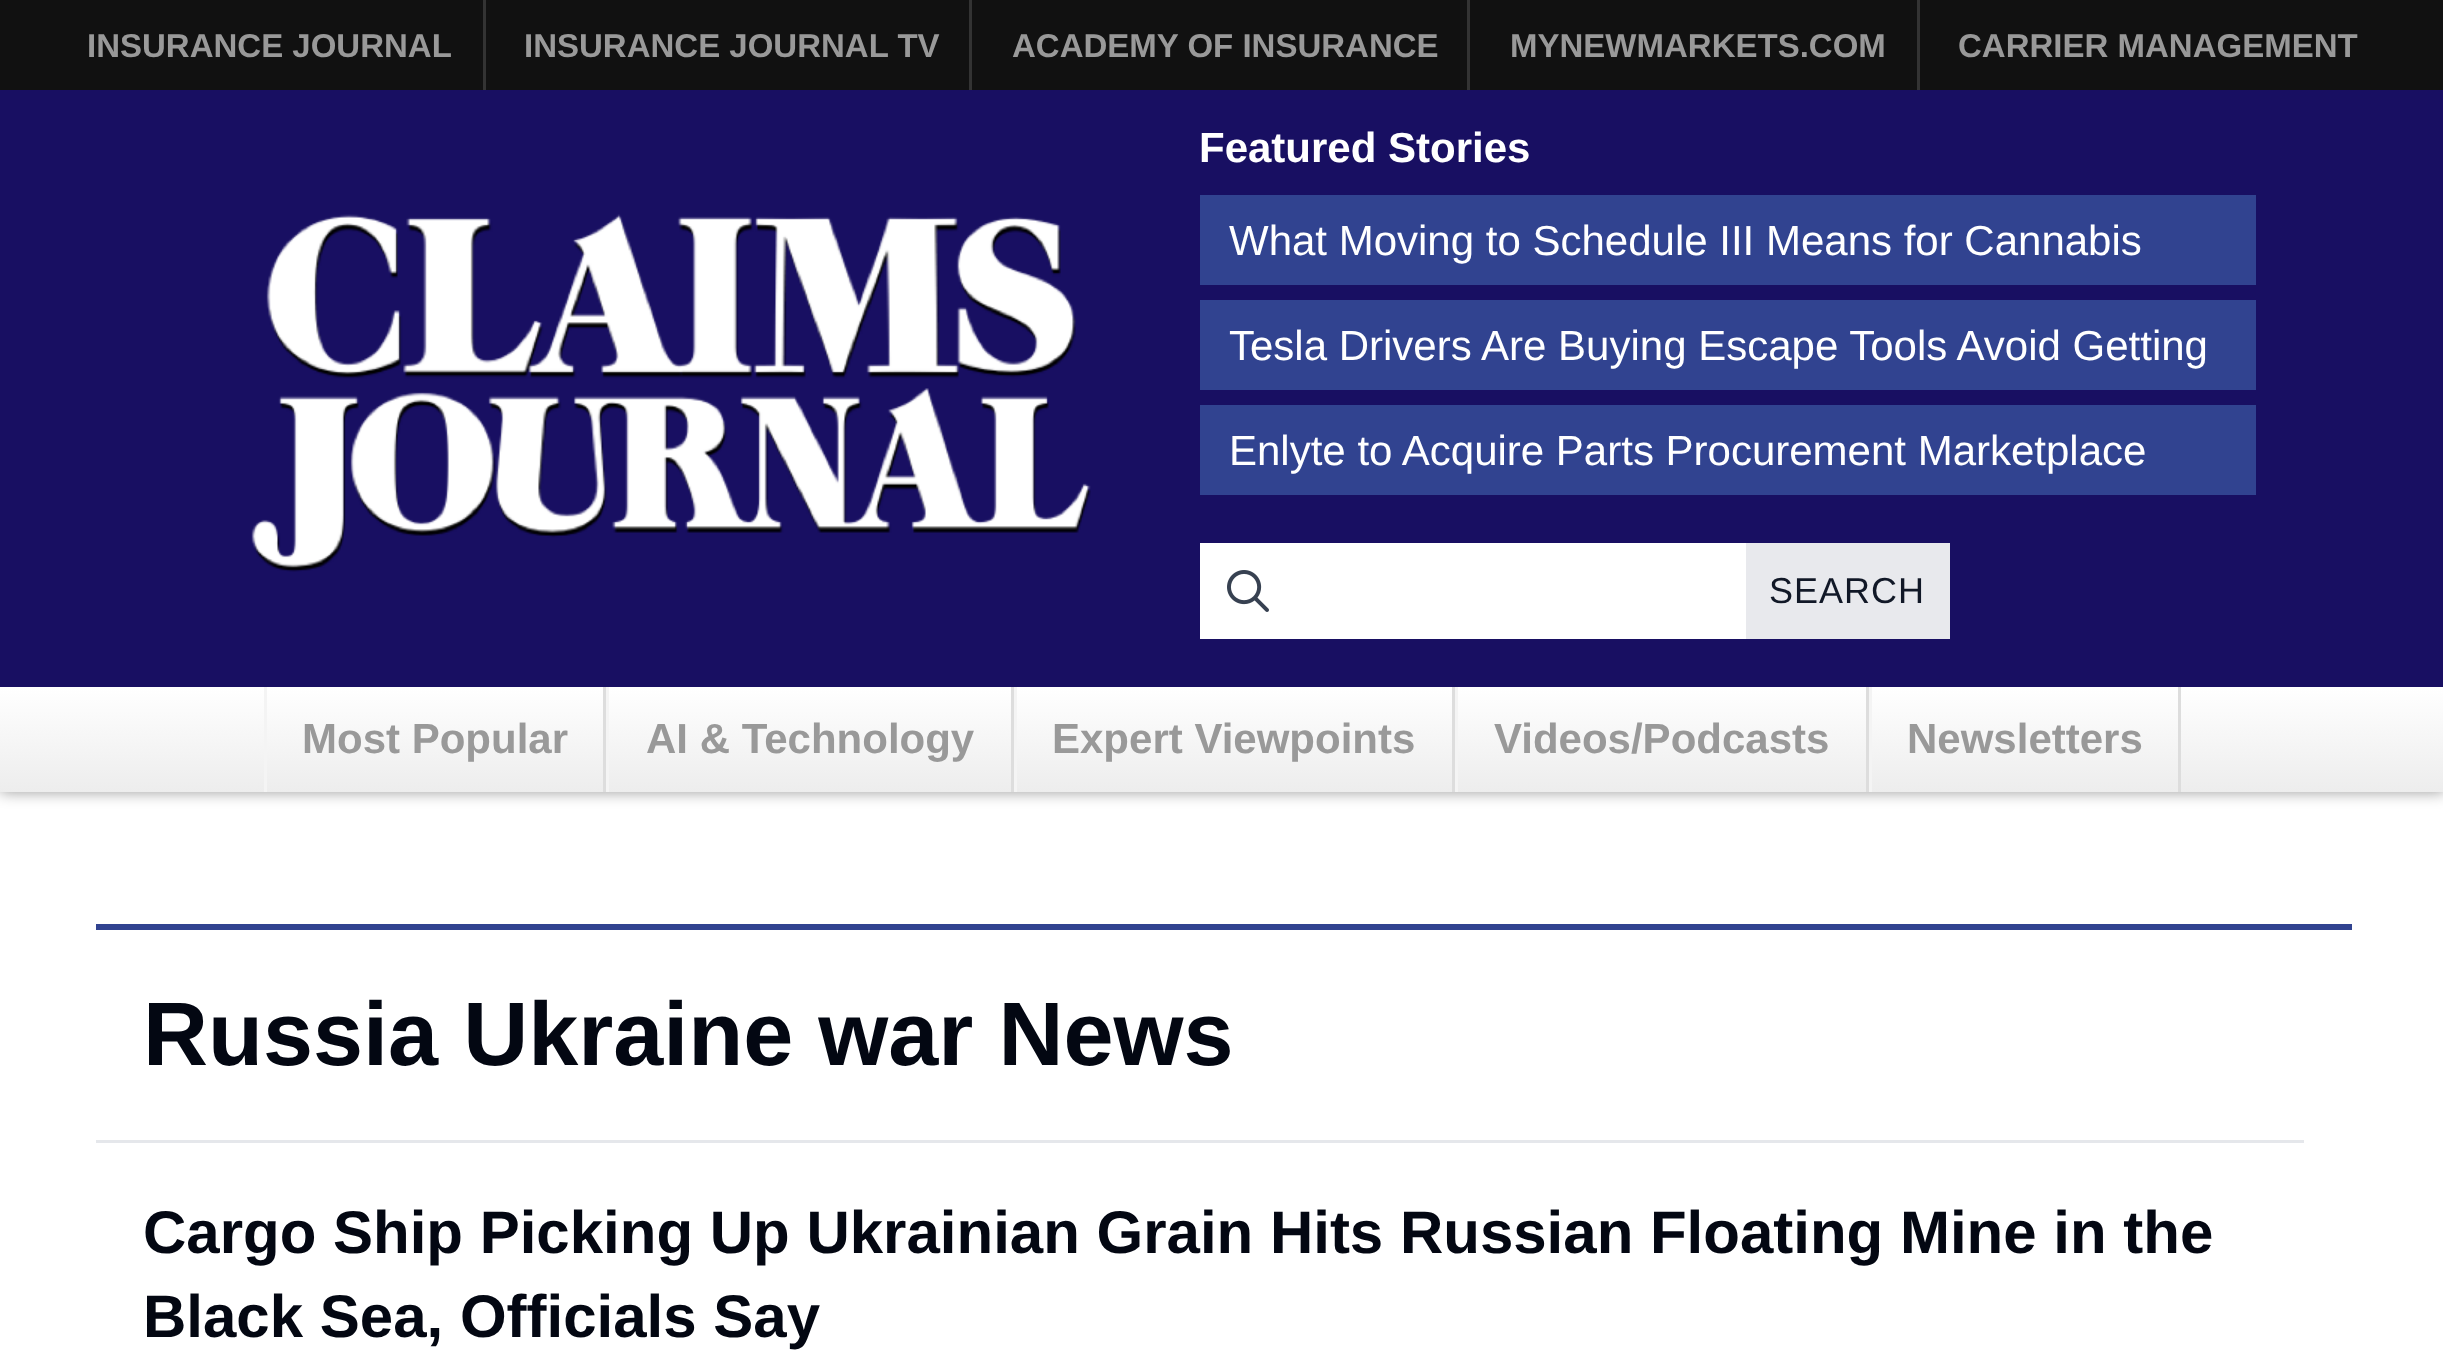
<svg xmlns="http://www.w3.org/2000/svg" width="2443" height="1372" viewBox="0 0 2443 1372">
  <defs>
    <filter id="blur1" x="-50%" y="-200%" width="200%" height="500%"><feGaussianBlur stdDeviation="7.5"/></filter>
    <linearGradient id="g1" gradientUnits="userSpaceOnUse" x1="1223" y1="687" x2="1223" y2="792"><stop offset="0" stop-color="#ffffff"/><stop offset="1" stop-color="#ededed"/></linearGradient>
  </defs>
  <rect width="100%" height="100%" fill="#ffffff"/>
  <rect x="0" y="0" width="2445" height="792" fill="#000000" fill-opacity="0.4" filter="url(#blur1)"/>
  <rect x="0" y="0" width="2443" height="90" fill="#111111"/>
  <rect x="483" y="0" width="3" height="90" fill="#333333"/>
  <text x="87" y="57" font-family="Liberation Sans" font-size="33" font-weight="bold" fill="#999999">INSURANCE JOURNAL</text>
  <rect x="969" y="0" width="3" height="90" fill="#333333"/>
  <text x="524" y="57" font-family="Liberation Sans" font-size="33" font-weight="bold" fill="#999999">INSURANCE JOURNAL TV</text>
  <rect x="1467" y="0" width="3" height="90" fill="#333333"/>
  <text x="1012" y="57" font-family="Liberation Sans" font-size="33" font-weight="bold" fill="#999999">ACADEMY OF INSURANCE</text>
  <rect x="1917" y="0" width="3" height="90" fill="#333333"/>
  <text x="1510" y="57" font-family="Liberation Sans" font-size="33" font-weight="bold" fill="#999999">MYNEWMARKETS.COM</text>
  <text x="1958" y="57" font-family="Liberation Sans" font-size="33" font-weight="bold" fill="#999999">CARRIER MANAGEMENT</text>
  <rect x="0" y="90" width="2443" height="597" fill="#180f62"/>
  <image x="251" y="214" width="840" height="358" href="img1.png"/>
  <text x="1199" y="162" font-family="Liberation Sans" font-size="42" font-weight="bold" fill="#ffffff">Featured Stories</text>
  <rect x="1200" y="195" width="1056" height="90" fill="#314390"/>
  <text x="1229" y="255" font-family="Liberation Sans" font-size="42" fill="#ffffff">What Moving to Schedule III Means for Cannabis</text>
  <rect x="1200" y="300" width="1056" height="90" fill="#314390"/>
  <text x="1229" y="360" font-family="Liberation Sans" font-size="42" fill="#ffffff">Tesla Drivers Are Buying Escape Tools Avoid Getting</text>
  <rect x="1200" y="405" width="1056" height="90" fill="#314390"/>
  <text x="1229" y="465" font-family="Liberation Sans" font-size="42" fill="#ffffff">Enlyte to Acquire Parts Procurement Marketplace</text>
  <rect x="1200" y="543" width="546" height="96" fill="#ffffff"/>
  <image x="1227" y="570" width="42" height="42" href="img2.png"/>
  <rect x="1746" y="543" width="204" height="96" fill="#e8e9ed"/>
  <text x="1769" y="603" font-family="Liberation Sans" font-size="36" letter-spacing="1" fill="#111827">SEARCH</text>
  <rect x="0" y="687" width="2443" height="105" fill="url(#g1)"/>
  <rect x="603" y="687" width="3" height="105" fill="#dddddd"/>
  <rect x="264" y="687" width="3" height="105" fill="#f4f4f4"/>
  <text x="302" y="753" font-family="Liberation Sans" font-size="42" font-weight="bold" fill="#999999">Most Popular</text>
  <rect x="1011" y="687" width="3" height="105" fill="#dddddd"/>
  <rect x="606" y="687" width="3" height="105" fill="#f4f4f4"/>
  <text x="646" y="753" font-family="Liberation Sans" font-size="42" font-weight="bold" fill="#999999">AI &amp; Technology</text>
  <rect x="1452" y="687" width="3" height="105" fill="#dddddd"/>
  <rect x="1014" y="687" width="3" height="105" fill="#f4f4f4"/>
  <text x="1052" y="753" font-family="Liberation Sans" font-size="42" font-weight="bold" fill="#999999">Expert Viewpoints</text>
  <rect x="1866" y="687" width="3" height="105" fill="#dddddd"/>
  <rect x="1455" y="687" width="3" height="105" fill="#f4f4f4"/>
  <text x="1494" y="753" font-family="Liberation Sans" font-size="42" font-weight="bold" fill="#999999">Videos/Podcasts</text>
  <rect x="2178" y="687" width="3" height="105" fill="#dddddd"/>
  <rect x="1869" y="687" width="3" height="105" fill="#f4f4f4"/>
  <text x="1907" y="753" font-family="Liberation Sans" font-size="42" font-weight="bold" fill="#999999">Newsletters</text>
  <rect x="96" y="924" width="2256" height="6" fill="#314390"/>
  <text x="143" y="1065" font-family="Liberation Sans" font-size="90" font-weight="bold" fill="#030712">Russia Ukraine war News</text>
  <rect x="96" y="1140" width="2208" height="3" fill="#e5e7eb"/>
  <text x="143" y="1253" font-family="Liberation Sans" font-size="60" font-weight="bold" fill="#030712">Cargo Ship Picking Up Ukrainian Grain Hits Russian Floating Mine in the</text>
  <text x="143" y="1337" font-family="Liberation Sans" font-size="60" font-weight="bold" fill="#030712">Black Sea, Officials Say</text>
</svg>
